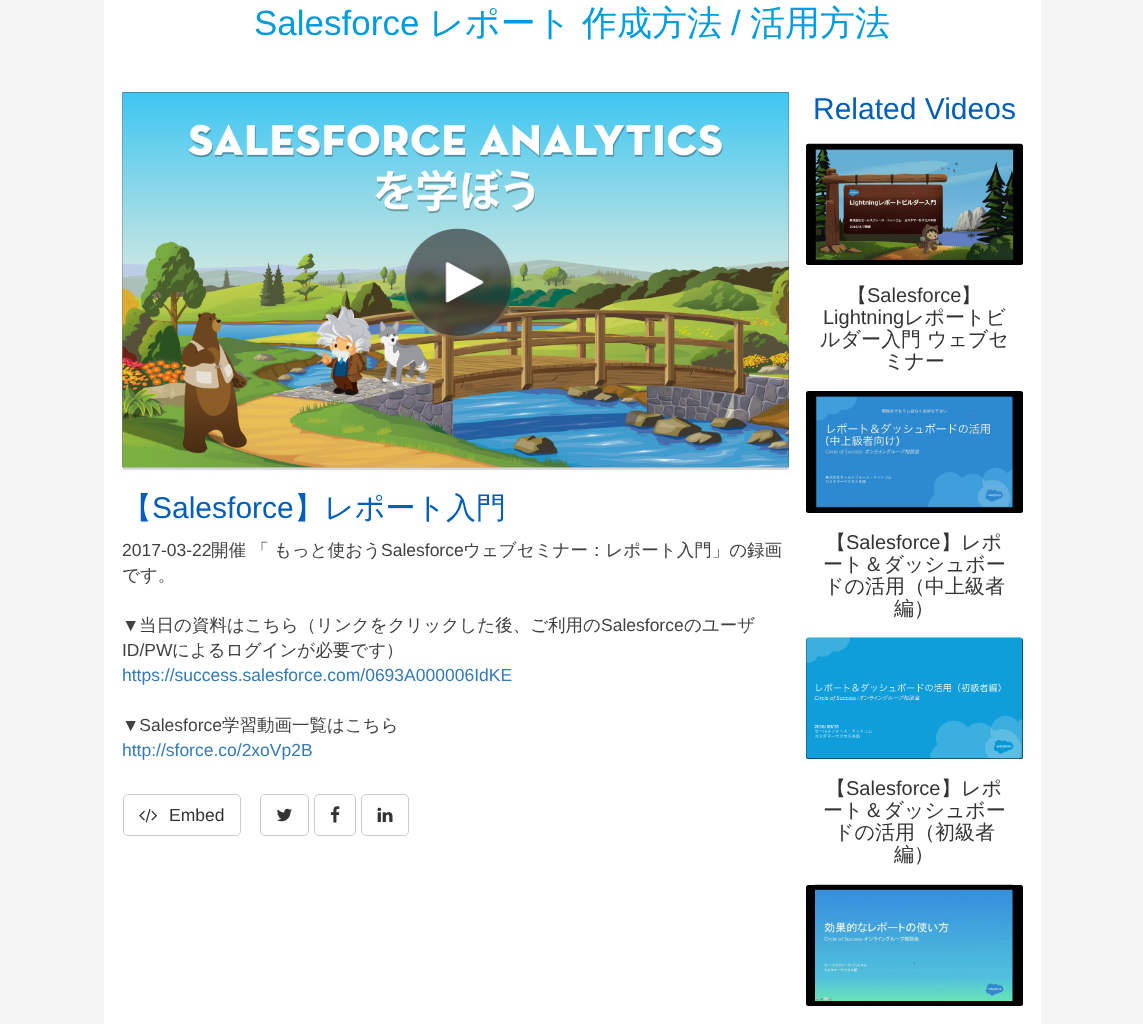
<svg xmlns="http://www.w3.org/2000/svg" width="1143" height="1024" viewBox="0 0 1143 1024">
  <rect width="100%" height="100%" fill="#f5f5f5"/>
  <rect x="104" y="0" width="937" height="1024" fill="#ffffff"/>
  <text x="254" y="35" font-family="Liberation Sans" font-size="35" fill="#009cdb">Salesforce</text>
  <text x="429" y="35" font-family="WenQuanYi Zen Hei" font-size="35" font-weight="500" fill="#009cdb">レポート 作成方法</text>
  <text x="731" y="35" font-family="Liberation Sans" font-size="35" fill="#009cdb">/</text>
  <text x="750" y="35" font-family="WenQuanYi Zen Hei" font-size="35" font-weight="500" fill="#009cdb">活用方法</text>
  <path d="M123 468V470H788V95V468Z" fill="#d9d9d9"/>
  <image x="122" y="92" width="667" height="376" href="img1.png"/>
  <text x="122" y="518" font-family="WenQuanYi Zen Hei" font-size="30" font-weight="500" fill="#025eb9">【</text>
  <text x="152" y="518" font-family="Liberation Sans" font-size="30" fill="#025eb9">Salesforce</text>
  <text x="294" y="518" font-family="WenQuanYi Zen Hei" font-size="30" font-weight="500" fill="#025eb9">】レポート入門</text>
  <text x="122" y="556" font-family="Liberation Sans" font-size="17.5" fill="#414142">2017-03-22</text>
  <text x="211" y="556" font-family="WenQuanYi Zen Hei" font-size="17.5" font-weight="500" fill="#414142">開催 「 もっと使おう</text>
  <text x="381" y="556" font-family="Liberation Sans" font-size="17.5" fill="#414142">Salesforce</text>
  <text x="463" y="556" font-family="WenQuanYi Zen Hei" font-size="17.5" font-weight="500" fill="#414142">ウェブセミナー：レポート入門」の録画</text>
  <text x="122" y="581" font-family="WenQuanYi Zen Hei" font-size="17.5" font-weight="500" fill="#414142">です。</text>
  <text x="122" y="631" font-family="Liberation Sans" font-size="17.5" fill="#414142">▼</text>
  <text x="139" y="631" font-family="WenQuanYi Zen Hei" font-size="17.5" font-weight="500" fill="#414142">当日の資料はこちら（リンクをクリックした後、ご利用の</text>
  <text x="601" y="631" font-family="Liberation Sans" font-size="17.5" fill="#414142">Salesforce</text>
  <text x="684" y="631" font-family="WenQuanYi Zen Hei" font-size="17.5" font-weight="500" fill="#414142">のユーザ</text>
  <text x="122" y="656" font-family="Liberation Sans" font-size="17.5" fill="#414142">ID/PW</text>
  <text x="172" y="656" font-family="WenQuanYi Zen Hei" font-size="17.5" font-weight="500" fill="#414142">によるログインが必要です）</text>
  <text x="122" y="681" font-family="Liberation Sans" font-size="17.5" fill="#337ab7">https://success.salesforce.com/0693A000006IdKE</text>
  <text x="122" y="731" font-family="Liberation Sans" font-size="17.5" fill="#414142">▼Salesforce</text>
  <text x="222" y="731" font-family="WenQuanYi Zen Hei" font-size="17.5" font-weight="500" fill="#414142">学習動画一覧はこちら</text>
  <text x="122" y="756" font-family="Liberation Sans" font-size="17.5" fill="#337ab7">http://sforce.co/2xoVp2B</text>
  <rect x="123.5" y="794.5" width="117" height="41" rx="4.5" fill="none" stroke="#cccccc"/>
  <image x="139" y="808" width="18" height="15" href="img2.png"/>
  <text x="169" y="821" font-family="Liberation Sans" font-size="17.5" fill="#333333">Embed</text>
  <rect x="260.5" y="794.5" width="48" height="41" rx="4.5" fill="none" stroke="#cccccc"/>
  <image x="277" y="808" width="15" height="14" href="img3.png"/>
  <rect x="314.5" y="794.5" width="41" height="41" rx="4.5" fill="none" stroke="#cccccc"/>
  <image x="330" y="806" width="10" height="17" href="img4.png"/>
  <rect x="361.5" y="794.5" width="47" height="41" rx="4.5" fill="none" stroke="#cccccc"/>
  <image x="377" y="807" width="16" height="15" href="img5.png"/>
  <text x="813" y="119" font-family="Liberation Sans" font-size="30" fill="#025eb9">Related Videos</text>
  <rect x="806.5" y="144.5" width="216" height="120" rx="2" fill="none" stroke="#e6e6e6"/>
  <path d="M809 146H1020C1021 146 1022 147 1022 149V265C1023 264 1023 263 1023 262V146C1023 145 1022 144 1020 144H808C807 144 806 145 806 146V149C806 147 807 146 809 146Z" fill="#000000" fill-opacity="0.05"/>
  <rect x="806" y="144" width="217" height="121" rx="2.5" fill="#000000"/>
  <image x="806" y="143" width="217" height="122" href="img6.png"/>
  <text x="847" y="302" font-family="WenQuanYi Zen Hei" font-size="20" font-weight="500" fill="#333333">【</text>
  <text x="867" y="302" font-family="Liberation Sans" font-size="20" fill="#333333">Salesforce</text>
  <text x="961" y="302" font-family="WenQuanYi Zen Hei" font-size="20" font-weight="500" fill="#333333">】</text>
  <text x="823" y="324" font-family="Liberation Sans" font-size="20" fill="#333333">Lightning</text>
  <text x="904" y="324" font-family="WenQuanYi Zen Hei" font-size="20" font-weight="500" fill="#333333">レポートビ</text>
  <text x="820" y="346" font-family="WenQuanYi Zen Hei" font-size="20" font-weight="500" fill="#333333">ルダー入門 ウェブセ</text>
  <text x="884" y="368" font-family="WenQuanYi Zen Hei" font-size="20" font-weight="500" fill="#333333">ミナー</text>
  <rect x="806.5" y="391.5" width="216" height="121" rx="2" fill="none" stroke="#e6e6e6"/>
  <path d="M809 394H1020C1021 394 1022 395 1022 396V513C1023 512 1023 511 1023 510V394C1023 392 1022 391 1020 391H808C807 391 806 392 806 394V396C806 395 807 394 809 394Z" fill="#000000" fill-opacity="0.05"/>
  <rect x="806" y="391" width="217" height="122" rx="2.5" fill="#000000"/>
  <image x="816" y="396" width="197" height="112" href="img7.png"/>
  <text x="826" y="549" font-family="WenQuanYi Zen Hei" font-size="20" font-weight="500" fill="#333333">【</text>
  <text x="846" y="549" font-family="Liberation Sans" font-size="20" fill="#333333">Salesforce</text>
  <text x="941" y="549" font-family="WenQuanYi Zen Hei" font-size="20" font-weight="500" fill="#333333">】レポ</text>
  <text x="823" y="571" font-family="WenQuanYi Zen Hei" font-size="20" font-weight="500" fill="#333333">ート＆ダッシュボー</text>
  <text x="824" y="593" font-family="WenQuanYi Zen Hei" font-size="20" font-weight="500" fill="#333333">ドの活用（中上級者</text>
  <text x="894" y="615" font-family="WenQuanYi Zen Hei" font-size="20" font-weight="500" fill="#333333">編）</text>
  <rect x="806.5" y="638.5" width="216" height="120" rx="2" fill="none" stroke="#e6e6e6"/>
  <path d="M809 640H1020C1021 640 1022 641 1022 642V759C1023 758 1023 757 1023 756V640C1023 639 1022 638 1020 638H808C807 638 806 639 806 640V642C806 641 807 640 809 640Z" fill="#000000" fill-opacity="0.05"/>
  <rect x="806" y="638" width="217" height="121" rx="2.5" fill="#000000"/>
  <image x="806" y="637" width="217" height="122" href="img8.png"/>
  <text x="826" y="795" font-family="WenQuanYi Zen Hei" font-size="20" font-weight="500" fill="#333333">【</text>
  <text x="846" y="795" font-family="Liberation Sans" font-size="20" fill="#333333">Salesforce</text>
  <text x="941" y="795" font-family="WenQuanYi Zen Hei" font-size="20" font-weight="500" fill="#333333">】レポ</text>
  <text x="823" y="817" font-family="WenQuanYi Zen Hei" font-size="20" font-weight="500" fill="#333333">ート＆ダッシュボー</text>
  <text x="834" y="839" font-family="WenQuanYi Zen Hei" font-size="20" font-weight="500" fill="#333333">ドの活用（初級者</text>
  <text x="894" y="861" font-family="WenQuanYi Zen Hei" font-size="20" font-weight="500" fill="#333333">編）</text>
  <rect x="806.5" y="885.5" width="216" height="120" rx="2" fill="none" stroke="#e6e6e6"/>
  <path d="M809 888H1020C1021 888 1022 889 1022 890V1006C1023 1005 1023 1004 1023 1004V888C1023 886 1022 885 1020 885H808C807 885 806 886 806 888V890C806 889 807 888 809 888Z" fill="#000000" fill-opacity="0.05"/>
  <rect x="806" y="885" width="217" height="121" rx="2.5" fill="#000000"/>
  <image x="815" y="884" width="198" height="118" href="img9.png"/>
</svg>
